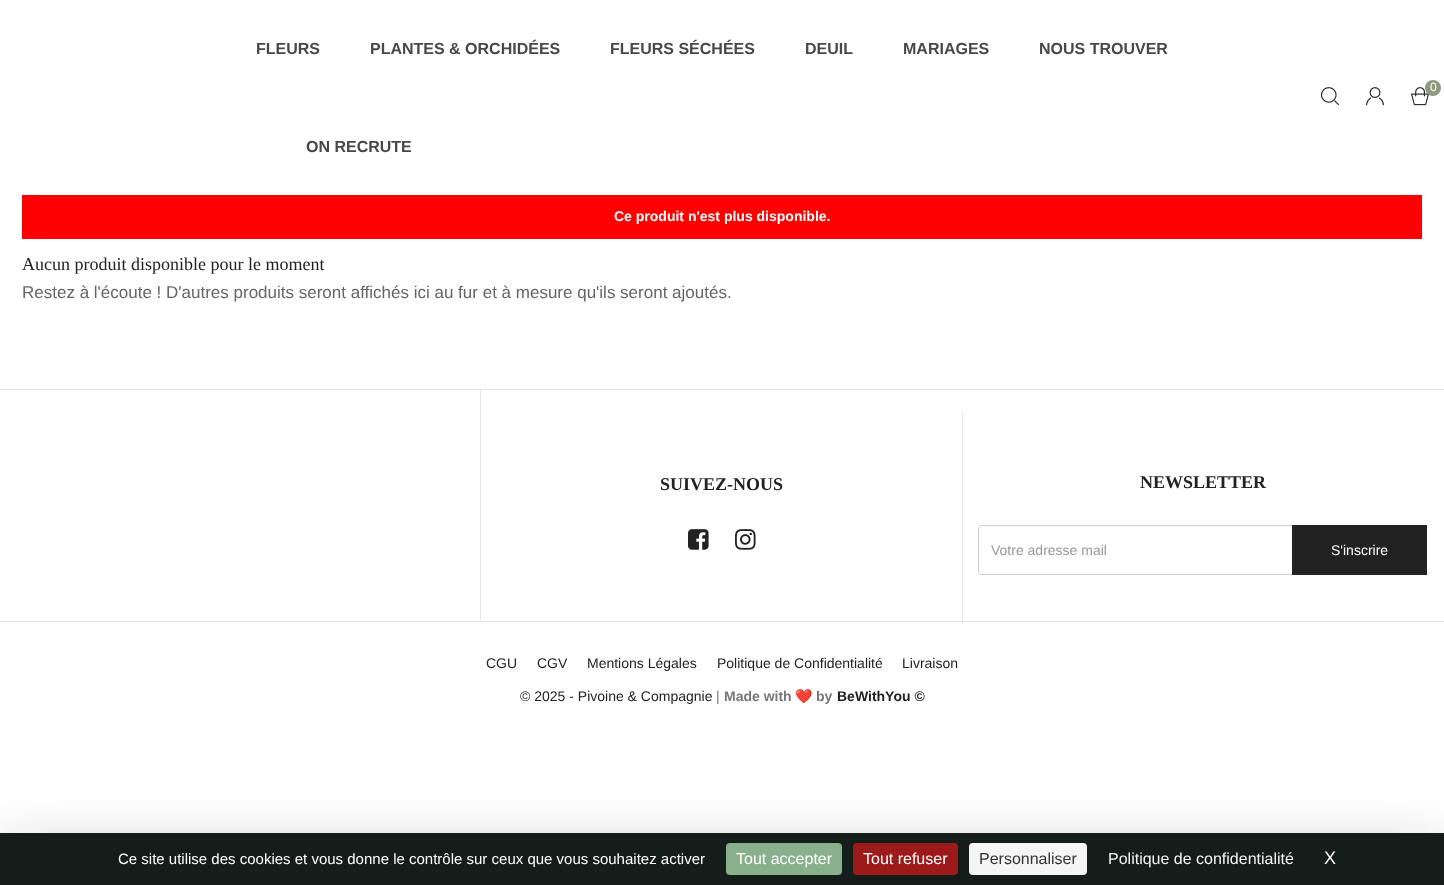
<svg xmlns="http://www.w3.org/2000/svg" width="1444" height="885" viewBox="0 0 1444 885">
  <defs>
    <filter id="blur1" x="-50%" y="-200%" width="200%" height="500%"><feGaussianBlur stdDeviation="30"/></filter>
  </defs>
  <rect width="100%" height="100%" fill="#ffffff"/>
  <text x="256" y="54" font-family="Liberation Sans" font-size="16" font-weight="bold" fill="#484848">FLEURS</text>
  <text x="370" y="54" font-family="Liberation Sans" font-size="16" font-weight="bold" fill="#484848">PLANTES &amp; ORCHIDÉES</text>
  <text x="610" y="54" font-family="Liberation Sans" font-size="16" font-weight="bold" fill="#484848">FLEURS SÉCHÉES</text>
  <text x="805" y="54" font-family="Liberation Sans" font-size="16" font-weight="bold" fill="#484848">DEUIL</text>
  <text x="903" y="54" font-family="Liberation Sans" font-size="16" font-weight="bold" fill="#484848">MARIAGES</text>
  <text x="1039" y="54" font-family="Liberation Sans" font-size="16" font-weight="bold" fill="#484848">NOUS TROUVER</text>
  <text x="306" y="152" font-family="Liberation Sans" font-size="16" font-weight="bold" fill="#484848">ON RECRUTE</text>
  <image x="1321" y="87" width="18" height="19" href="img1.png"/>
  <image x="1366" y="87" width="18" height="19" href="img2.png"/>
  <image x="1411" y="87" width="18" height="19" href="img3.png"/>
  <circle cx="1433" cy="88" r="8" fill="#8f9980"/>
  <text x="1430" y="91" font-family="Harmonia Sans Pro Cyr" font-size="12" fill="#ffffff">0</text>
  <rect x="22" y="195" width="1400" height="44" fill="#ff0000"/>
  <text x="614" y="221" font-family="Liberation Sans" font-size="14" font-weight="bold" fill="#ffffff">Ce produit n'est plus disponible.</text>
  <text x="22" y="270" font-family="Liberation Serif" font-size="18" fill="#222222">Aucun produit disponible pour le moment</text>
  <text x="22" y="298" font-family="Liberation Sans" font-size="17" fill="#666666">Restez à l'écoute ! D'autres produits seront affichés ici au fur et à mesure qu'ils seront ajoutés.</text>
  <rect x="0" y="389" width="1444" height="1" fill="#e6e6e6"/>
  <rect x="0" y="621" width="1444" height="1" fill="#e6e6e6"/>
  <rect x="480" y="390" width="1" height="231" fill="#e6e6e6"/>
  <rect x="962" y="412" width="1" height="209" fill="#e6e6e6"/>
  <text x="660" y="490" font-family="Liberation Serif" font-size="18" font-weight="bold" fill="#222222">SUIVEZ-NOUS</text>
  <image x="688" y="529" width="21" height="21" href="img4.png"/>
  <image x="735" y="529" width="21" height="21" href="img5.png"/>
  <text x="1140" y="488" font-family="Liberation Serif" font-size="18" font-weight="bold" fill="#222222">NEWSLETTER</text>
  <path d="M982 525.5H1292.5V574.5H982C980 574.5 978.5 573 978.5 571V529C978.5 527 980 525.5 982 525.5Z" fill="none" stroke="#cccccc"/>
  <text x="991" y="555" font-family="Liberation Sans" font-size="14" fill="#999999">Votre adresse mail</text>
  <rect x="1292" y="525" width="135" height="50" fill="#222222"/>
  <text x="1331" y="555" font-family="Liberation Sans" font-size="14" fill="#ffffff">S'inscrire</text>
  <text x="486" y="668" font-family="Liberation Sans" font-size="14" fill="#222222">CGU</text>
  <text x="537" y="668" font-family="Liberation Sans" font-size="14" fill="#222222">CGV</text>
  <text x="587" y="668" font-family="Liberation Sans" font-size="14" fill="#222222">Mentions Légales</text>
  <text x="717" y="668" font-family="Liberation Sans" font-size="14" fill="#222222">Politique de Confidentialité</text>
  <text x="902" y="668" font-family="Liberation Sans" font-size="14" fill="#222222">Livraison</text>
  <text x="520" y="701" font-family="Liberation Sans" font-size="14" fill="#222222">© 2025 - Pivoine &amp; Compagnie</text>
  <text x="716" y="701" font-family="Liberation Sans" font-size="14" fill="#777777">|</text>
  <text x="724" y="701" font-family="Liberation Sans" font-size="14" font-weight="bold" fill="#777777">Made with</text>
  <text x="795" y="701" font-family="Noto Color Emoji" font-size="14" font-weight="bold" fill="#777777">❤️</text>
  <text x="816" y="701" font-family="Liberation Sans" font-size="14" font-weight="bold" fill="#777777">by</text>
  <text x="837" y="701" font-family="Liberation Sans" font-size="14" font-weight="bold" fill="#222222">BeWithYou ©</text>
  <rect x="0" y="853" width="1444" height="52" fill="#000000" fill-opacity="0.25" filter="url(#blur1)"/>
  <rect x="0" y="833" width="1444" height="52" fill="#141d19"/>
  <text x="118" y="864" font-family="Liberation Sans" font-size="15" fill="#ffffff">Ce site utilise des cookies et vous donne le contrôle sur ceux que vous souhaitez activer</text>
  <rect x="726" y="843" width="116" height="32" rx="4" fill="#87b08b"/>
  <text x="736" y="864" font-family="Liberation Sans" font-size="16" fill="#ffffff">Tout accepter</text>
  <rect x="853" y="843" width="105" height="32" rx="4" fill="#9c1a1a"/>
  <text x="863" y="864" font-family="Liberation Sans" font-size="16" fill="#ffffff">Tout refuser</text>
  <rect x="969" y="843" width="118" height="32" rx="4" fill="#f5f5f5"/>
  <text x="979" y="864" font-family="Liberation Sans" font-size="16" fill="#333333">Personnaliser</text>
  <text x="1108" y="864" font-family="Liberation Sans" font-size="16" fill="#f5f5f5">Politique de confidentialité</text>
  <text x="1324" y="864" font-family="Liberation Sans" font-size="18" fill="#ffffff">X</text>
</svg>
